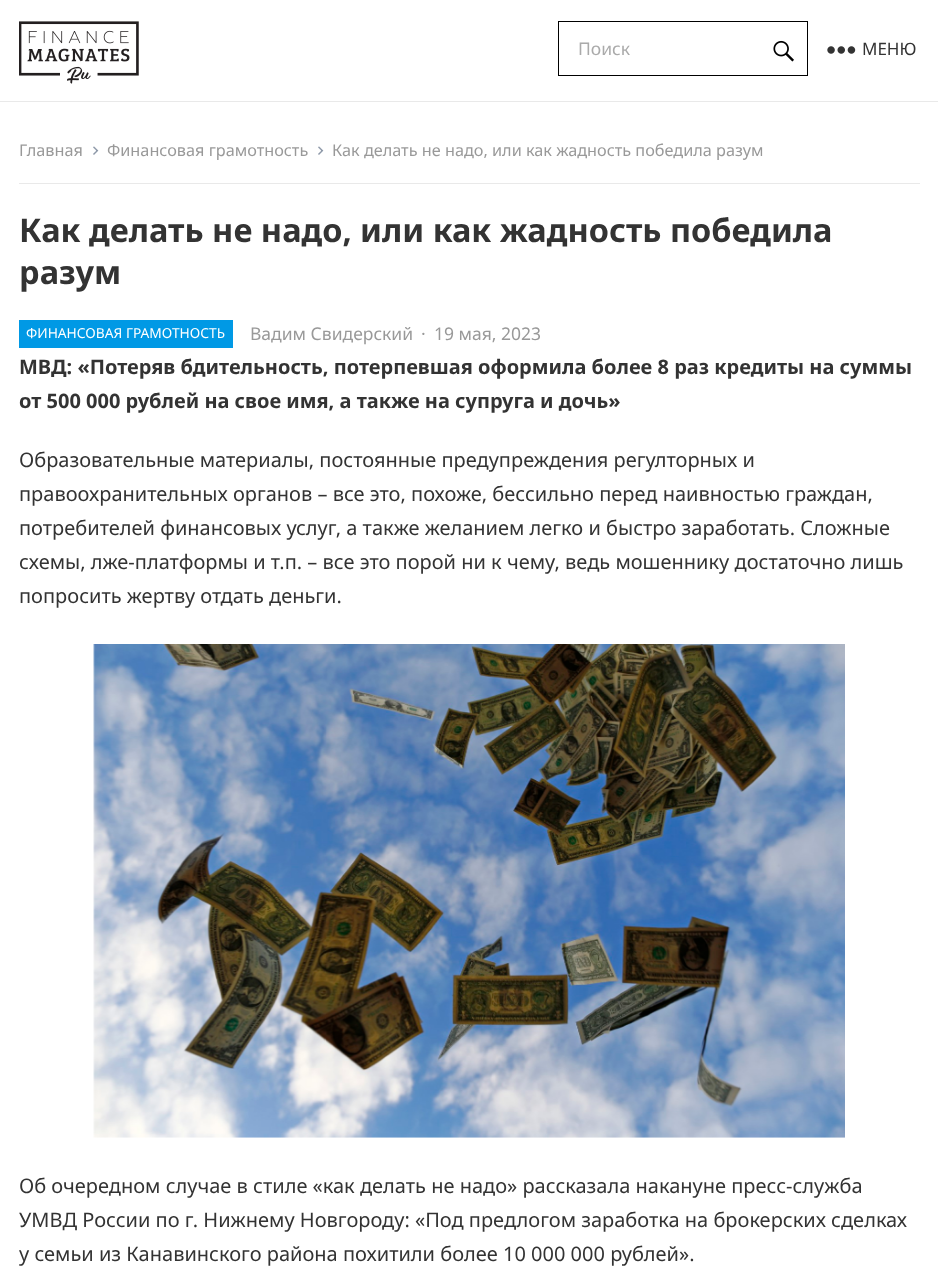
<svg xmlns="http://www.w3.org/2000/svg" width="938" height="1282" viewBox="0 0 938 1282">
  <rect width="100%" height="100%" fill="#ffffff"/>
  <rect x="0" y="101" width="938" height="1" fill="#e9e9e9"/>
  <rect x="558.5" y="21.5" width="249" height="54" fill="none" stroke="#000000"/>
  <text x="578" y="55" font-family="Noto Sans" font-size="17.5" fill="#aaaaaa">Поиск</text>
  <image x="773" y="40" width="21" height="22" href="img1.png"/>
  <image x="19" y="21" width="120" height="63" href="img2.png"/>
  <image x="827" y="46" width="29" height="8" href="img3.png"/>
  <text x="862" y="55" font-family="Noto Sans" font-size="17" fill="#333333">МЕНЮ</text>
  <rect x="19" y="183" width="901" height="1" fill="#e9e9e9"/>
  <text x="19" y="156" font-family="Noto Sans" font-size="16.25" fill="#999999">Главная</text>
  <image x="93" y="146" width="6" height="9" href="img4.png"/>
  <text x="107" y="156" font-family="Noto Sans" font-size="16.25" fill="#999999">Финансовая грамотность</text>
  <image x="318" y="146" width="6" height="9" href="img4.png"/>
  <text x="332" y="156" font-family="Noto Sans" font-size="16.25" fill="#999999">Как делать не надо, или как жадность победила разум</text>
  <text x="19" y="242" font-family="Noto Sans" font-size="32.5" font-weight="bold" fill="#333333">Как делать не надо, или как жадность победила</text>
  <text x="19" y="284" font-family="Noto Sans" font-size="32.5" font-weight="bold" fill="#333333">разум</text>
  <rect x="19" y="320" width="214" height="28" fill="#0099e5"/>
  <text x="26" y="338" font-family="Noto Sans" font-size="13.75" fill="#ffffff">ФИНАНСОВАЯ ГРАМОТНОСТЬ</text>
  <text x="250" y="340" font-family="Noto Sans" font-size="17.5" fill="#999999">Вадим Свидерский</text>
  <text x="421" y="340" font-family="Noto Sans" font-size="17.5" fill="#999999">·</text>
  <text x="434" y="340" font-family="Noto Sans" font-size="17.5" fill="#999999">19 мая, 2023</text>
  <text x="19" y="374" font-family="Noto Sans" font-size="20" font-weight="bold" fill="#333333">МВД: «Потеряв бдительность, потерпевшая оформила более 8 раз кредиты на суммы</text>
  <text x="19" y="408" font-family="Noto Sans" font-size="20" font-weight="bold" fill="#333333">от 500 000 рублей на свое имя, а также на супруга и дочь»</text>
  <text x="19" y="467" font-family="Noto Sans" font-size="20" fill="#333333">Образовательные материалы, постоянные предупреждения регулторных и</text>
  <text x="19" y="501" font-family="Noto Sans" font-size="20" fill="#333333">правоохранительных органов – все это, похоже, бессильно перед наивностью граждан,</text>
  <text x="19" y="535" font-family="Noto Sans" font-size="20" fill="#333333">потребителей финансовых услуг, а также желанием легко и быстро заработать. Сложные</text>
  <text x="19" y="569" font-family="Noto Sans" font-size="20" fill="#333333">схемы, лже-платформы и т.п. – все это порой ни к чему, ведь мошеннику достаточно лишь</text>
  <text x="19" y="603" font-family="Noto Sans" font-size="20" fill="#333333">попросить жертву отдать деньги.</text>
  <image x="93" y="644" width="752" height="494" href="img5.png"/>
  <text x="19" y="1193" font-family="Noto Sans" font-size="20" fill="#333333">Об очередном случае в стиле «как делать не надо» рассказала накануне пресс-служба</text>
  <text x="19" y="1227" font-family="Noto Sans" font-size="20" fill="#333333">УМВД России по г. Нижнему Новгороду: «Под предлогом заработка на брокерских сделках</text>
  <text x="19" y="1261" font-family="Noto Sans" font-size="20" fill="#333333">у семьи из Канавинского района похитили более 10 000 000 рублей».</text>
</svg>
